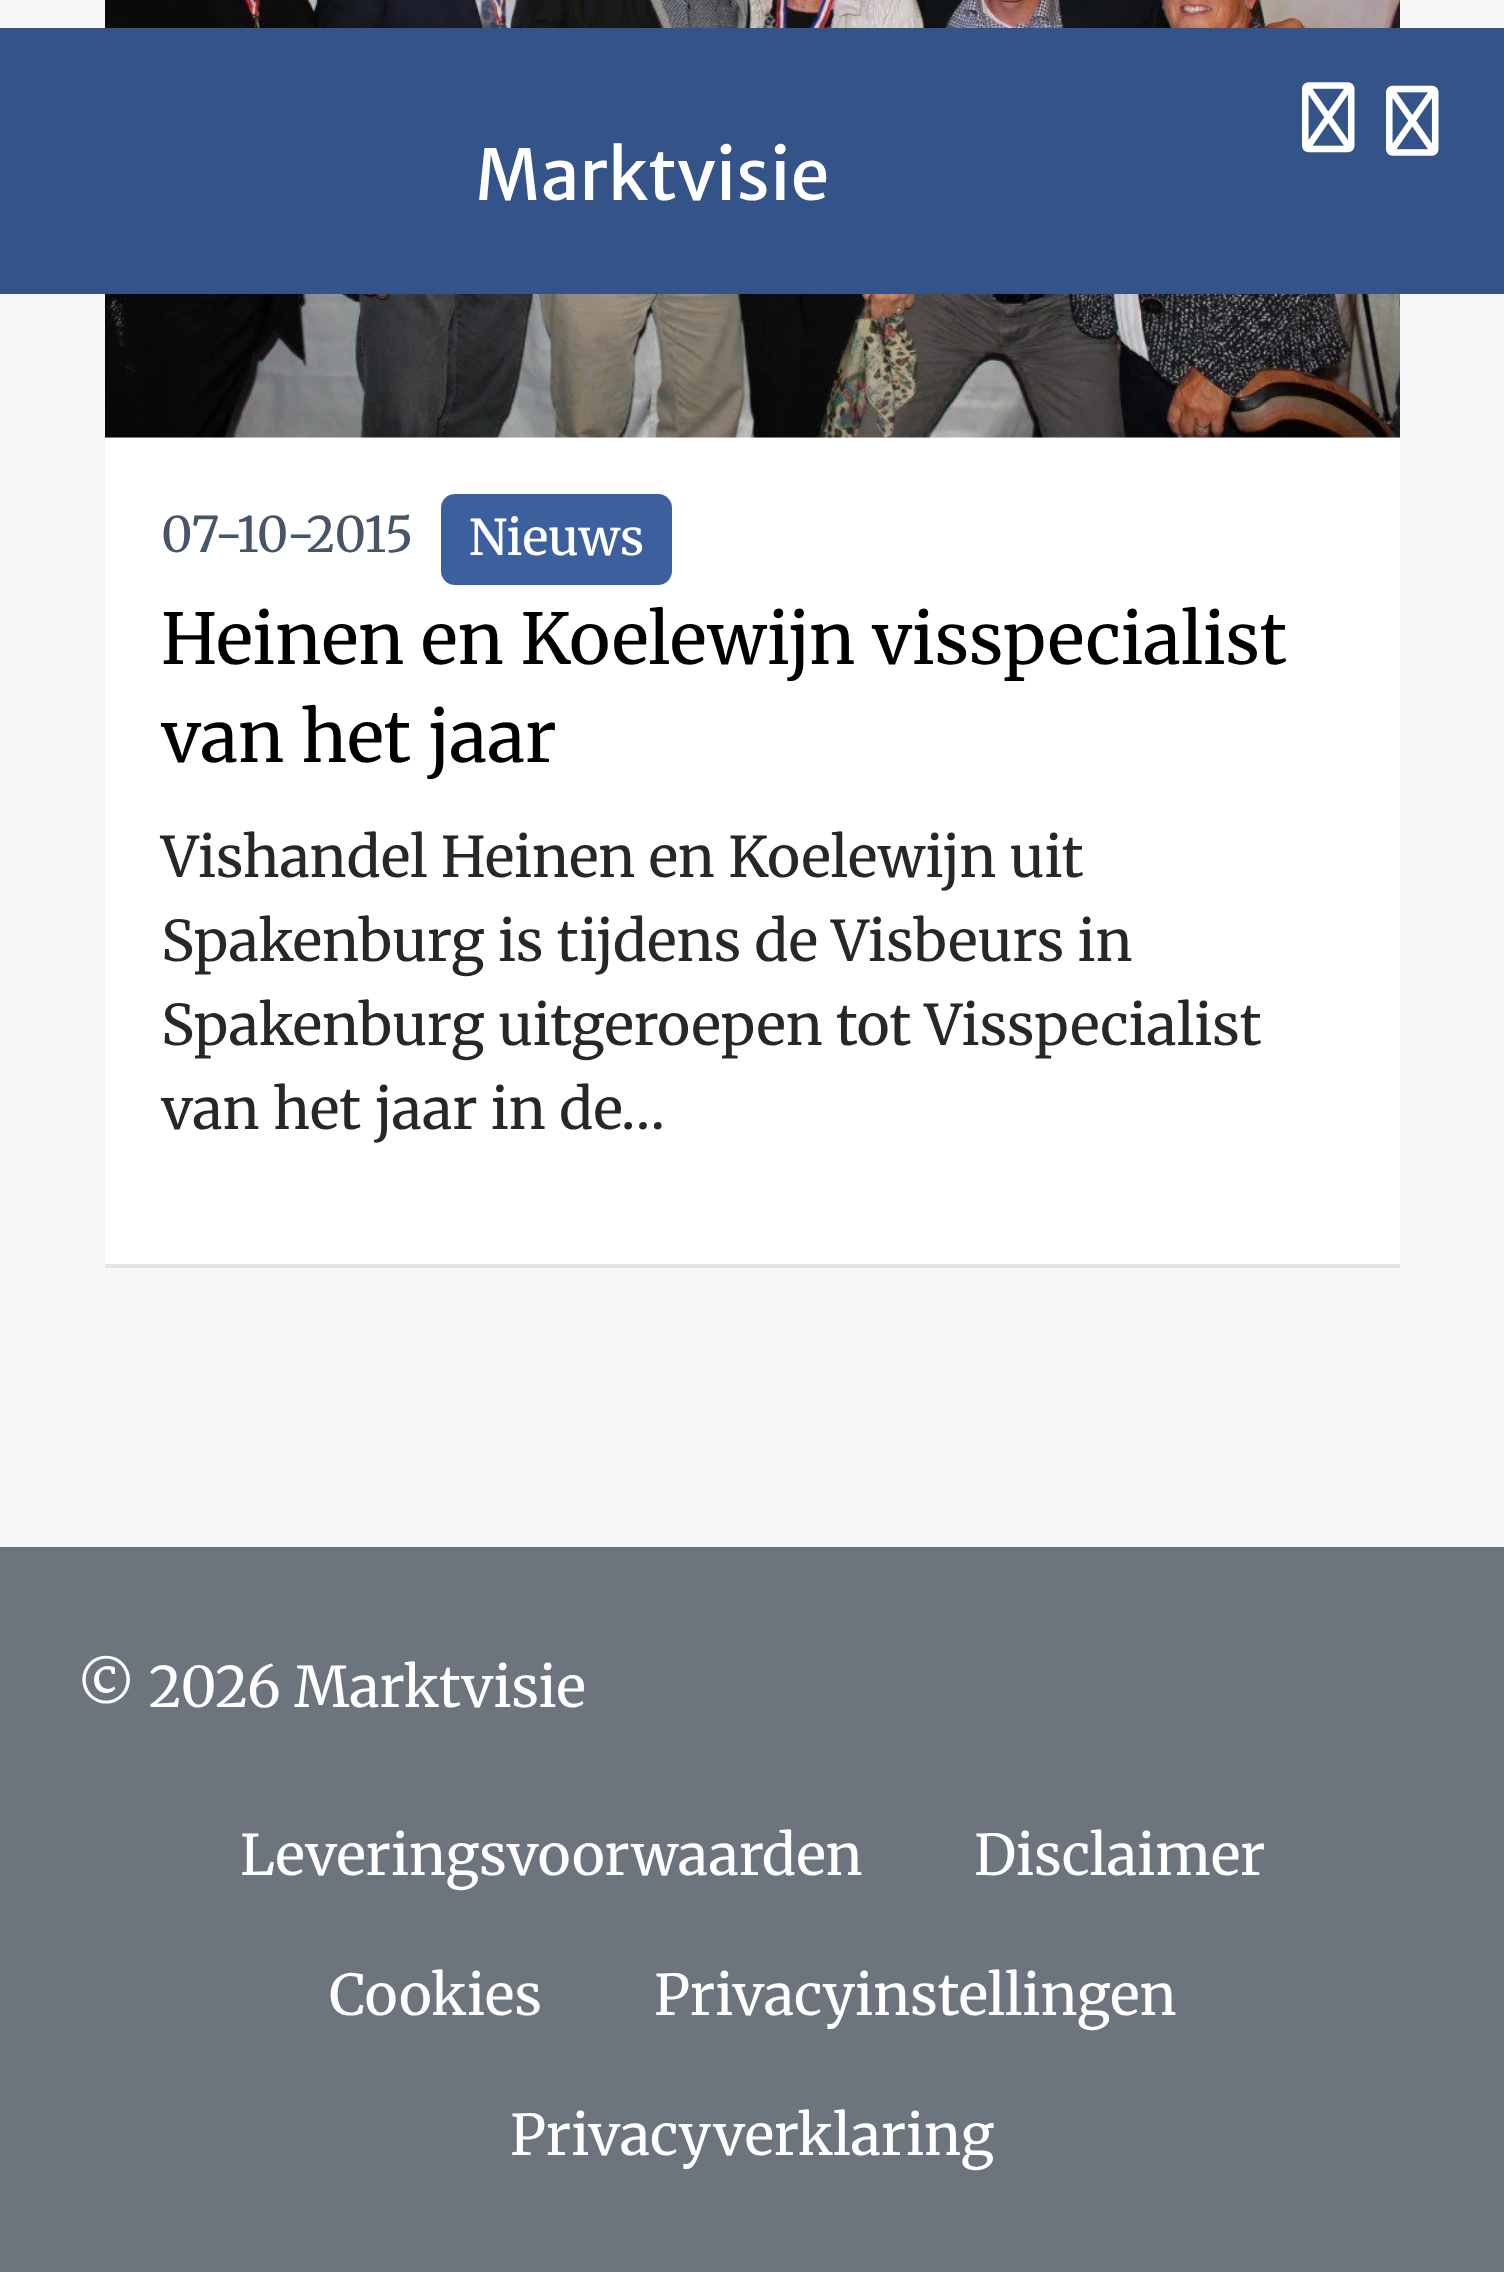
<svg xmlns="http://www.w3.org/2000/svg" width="1504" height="2272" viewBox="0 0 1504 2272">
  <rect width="100%" height="100%" fill="#f7f7f7"/>
  <image x="105" y="0" width="1295" height="438" href="img3.png"/>
  <rect x="0" y="28" width="1504" height="266" fill="#345388"/>
  <image x="1302" y="82" width="53" height="71" href="img1.png"/>
  <image x="1386" y="85" width="53" height="71" href="img2.png"/>
  <text x="475" y="200" font-family="Merriweather Sans" font-size="70" fill="#ffffff">Marktvisie</text>
  <rect x="105" y="438" width="1295" height="826" fill="#ffffff"/>
  <rect x="105" y="1264" width="1295" height="4" fill="#e4e4e7"/>
  <text x="161" y="552" font-family="Merriweather" font-size="49" fill="#475569">07-10-2015</text>
  <rect x="441" y="494" width="231" height="91" rx="14" fill="#3c609e"/>
  <text x="469" y="555" font-family="Merriweather" font-size="49" font-weight="500" fill="#ffffff">Nieuws</text>
  <text x="161" y="664" font-family="Merriweather" font-size="70" fill="#000000">Heinen en Koelewijn visspecialist</text>
  <text x="161" y="762" font-family="Merriweather" font-size="70" fill="#000000">van het jaar</text>
  <text x="161" y="877" font-family="Merriweather" font-size="56" fill="#27272a">Vishandel Heinen en Koelewijn uit</text>
  <text x="161" y="961" font-family="Merriweather" font-size="56" fill="#27272a">Spakenburg is tijdens de Visbeurs in</text>
  <text x="161" y="1045" font-family="Merriweather" font-size="56" fill="#27272a">Spakenburg uitgeroepen tot Visspecialist</text>
  <text x="161" y="1129" font-family="Merriweather" font-size="56" fill="#27272a">van het jaar in de…</text>
  <rect x="0" y="1547" width="1504" height="725" fill="#6c757d"/>
  <text x="77" y="1707" font-family="Merriweather" font-size="56" fill="#ffffff">© 2026 Marktvisie</text>
  <text x="240" y="1875" font-family="Merriweather" font-size="56" fill="#ffffff">Leveringsvoorwaarden</text>
  <text x="974" y="1875" font-family="Merriweather" font-size="56" fill="#ffffff">Disclaimer</text>
  <text x="329" y="2015" font-family="Merriweather" font-size="56" fill="#ffffff">Cookies</text>
  <text x="654" y="2015" font-family="Merriweather" font-size="56" fill="#ffffff">Privacyinstellingen</text>
  <text x="510" y="2155" font-family="Merriweather" font-size="56" fill="#ffffff">Privacyverklaring</text>
</svg>
